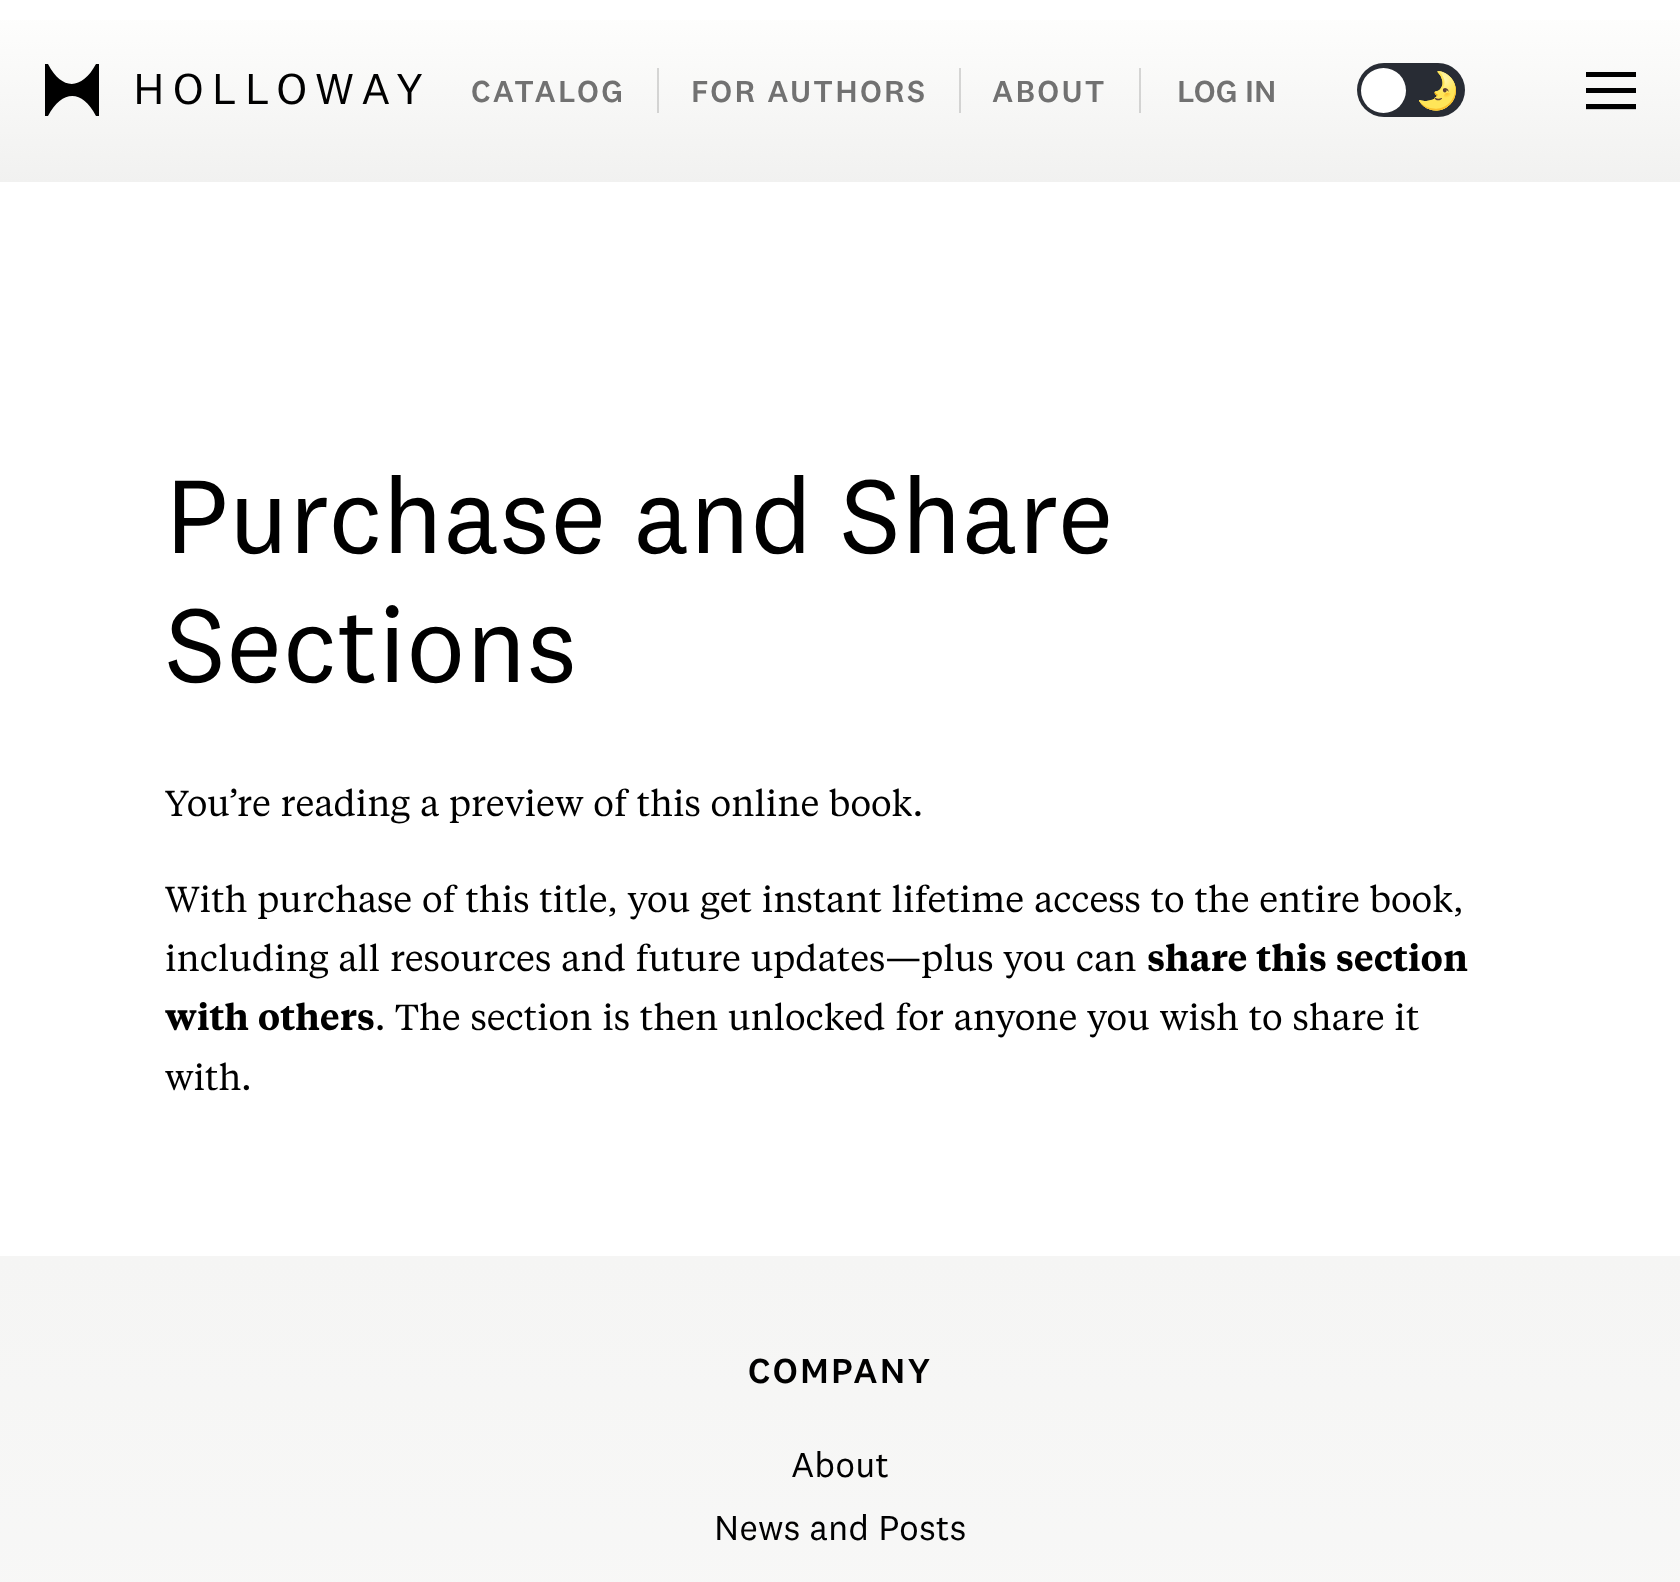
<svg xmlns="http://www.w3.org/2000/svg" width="1680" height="1582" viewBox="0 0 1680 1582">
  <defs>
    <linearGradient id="g1" gradientUnits="userSpaceOnUse" x1="840" y1="0" x2="840" y2="182"><stop offset="0" stop-color="#fffffe"/><stop offset="1" stop-color="#f1f1f0"/></linearGradient>
    <linearGradient id="g2" gradientUnits="userSpaceOnUse" x1="840" y1="0" x2="840" y2="182"><stop offset="0" stop-color="#d9d9d8"/><stop offset="1" stop-color="#cfcfce"/></linearGradient>
    <linearGradient id="g3" gradientUnits="userSpaceOnUse" x1="840" y1="1256" x2="840" y2="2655"><stop offset="0" stop-color="#f5f5f4"/><stop offset="1" stop-color="#ffffff"/></linearGradient>
  </defs>
  <rect width="100%" height="100%" fill="#ffffff"/>
  <rect x="0" y="20" width="1680" height="162" fill="url(#g1)"/>
  <rect x="1139" y="68" width="2" height="45" fill="url(#g2)"/>
  <rect x="959" y="68" width="2" height="45" fill="url(#g2)"/>
  <rect x="657" y="68" width="2" height="45" fill="url(#g2)"/>
  <path d="M96 64C82 90 62 91 48 64H45V116H48C62 90 82 89 96 116H99V64Z" fill="#000000" fill-rule="evenodd"/>
  <text x="133" y="104" font-family="'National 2'" font-size="45" letter-spacing="8" fill="#000000">HOLLOWAY</text>
  <text x="471" y="102" font-family="'National 2'" font-size="31.5" font-weight="500" letter-spacing="2.25" fill="#717171">CATALOG</text>
  <text x="691" y="102" font-family="'National 2'" font-size="31.5" font-weight="500" letter-spacing="2.25" fill="#717171">FOR AUTHORS</text>
  <text x="992" y="102" font-family="'National 2'" font-size="31.5" font-weight="500" letter-spacing="2.25" fill="#717171">ABOUT</text>
  <text x="1177" y="102" font-family="'National 2'" font-size="31.5" font-weight="500" fill="#717171">LOG IN</text>
  <rect x="1357" y="63" width="108" height="54" rx="27" fill="#282c34"/>
  <circle cx="1383.5" cy="90.5" r="22.5" fill="#ffffff"/>
  <text x="1415" y="103" font-family="Noto Color Emoji" font-size="36" fill="#000000">🌛</text>
  <rect x="1586" y="109" width="50" height="1" fill="#cccccc"/>
  <rect x="1586" y="72" width="50" height="5" fill="#000000"/>
  <rect x="1586" y="88" width="50" height="5" fill="#000000"/>
  <rect x="1586" y="104" width="50" height="5" fill="#000000"/>
  <text x="165" y="553" font-family="'National 2'" font-size="108" fill="#000000">Purchase and Share</text>
  <text x="165" y="682" font-family="'National 2'" font-size="108" fill="#000000">Sections</text>
  <text x="165" y="816" word-spacing="1.75" font-family="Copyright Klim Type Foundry" font-size="36" fill="#000000">You’re reading a preview of this online book.</text>
  <text x="165" y="912" word-spacing="1.75" font-family="Copyright Klim Type Foundry" font-size="36" fill="#000000">With purchase of this title, you get instant lifetime access to the entire book,</text>
  <text x="165" y="971" word-spacing="1.75" font-family="Copyright Klim Type Foundry" font-size="36" fill="#000000">including all resources and future updates—plus you can</text>
  <text x="1147" y="971" word-spacing="1.75" font-family="Copyright Klim Type Foundry" font-size="36" font-weight="600" fill="#000000">share this section</text>
  <text x="165" y="1030" word-spacing="1.75" font-family="Copyright Klim Type Foundry" font-size="36" font-weight="600" fill="#000000">with others</text>
  <text x="375" y="1030" word-spacing="1.75" font-family="Copyright Klim Type Foundry" font-size="36" fill="#000000">. The section is then unlocked for anyone you wish to share it</text>
  <text x="165" y="1090" font-family="Copyright Klim Type Foundry" font-size="36" fill="#000000">with.</text>
  <rect x="0" y="1256" width="1680" height="326" fill="url(#g3)"/>
  <text x="748" y="1383" font-family="'National 2'" font-size="36" font-weight="500" letter-spacing="2.25" fill="#000000">COMPANY</text>
  <text x="791" y="1477" font-family="'National 2'" font-size="36" fill="#000000">About</text>
  <text x="714" y="1540" font-family="'National 2'" font-size="36" fill="#000000">News and Posts</text>
</svg>
